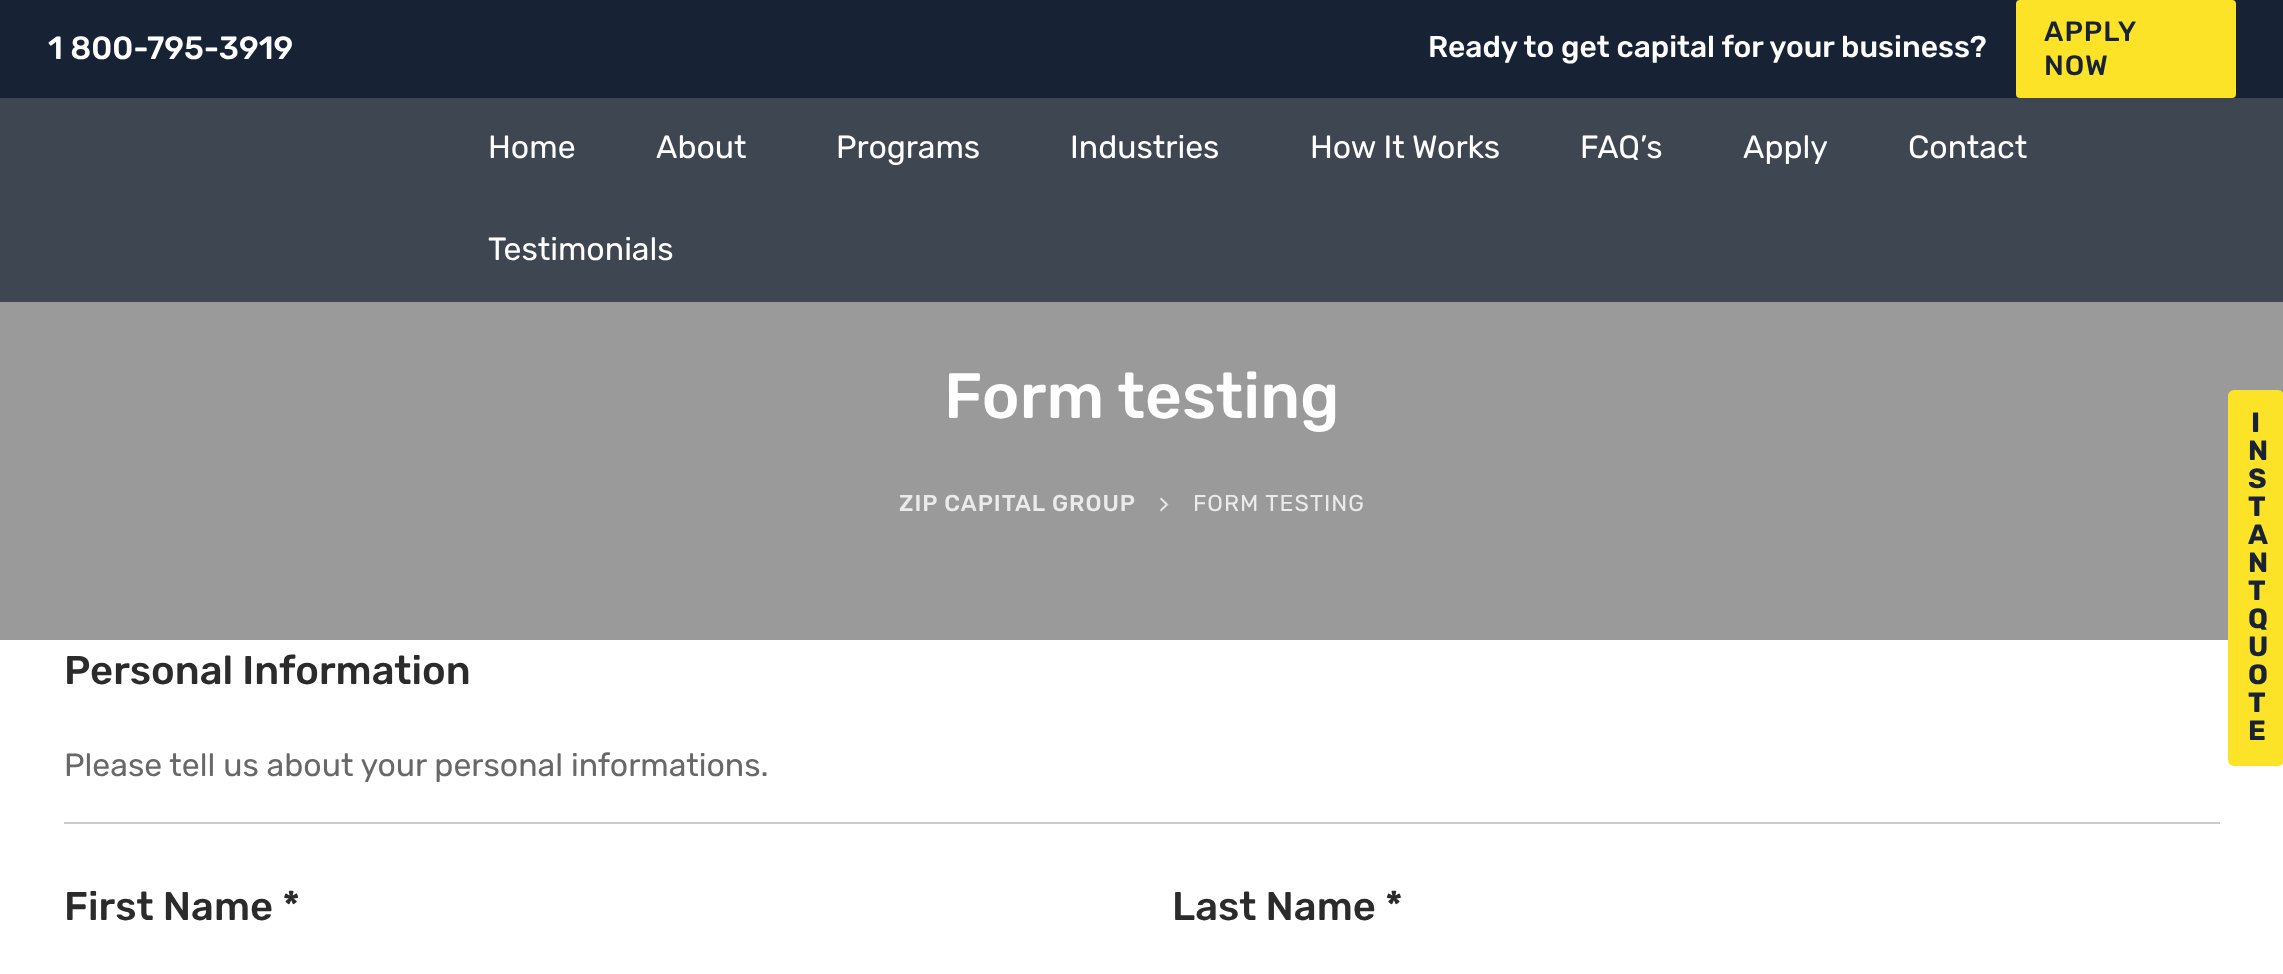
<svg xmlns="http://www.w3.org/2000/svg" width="2283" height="974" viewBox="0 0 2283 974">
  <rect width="100%" height="100%" fill="#ffffff"/>
  <rect x="0" y="0" width="2283" height="98" fill="#172234"/>
  <text x="48" y="59" font-family="Rubik" font-size="32" font-weight="500" fill="#fefefe">1 800-795-3919</text>
  <text x="1428" y="57" font-family="Rubik" font-size="30" font-weight="500" fill="#fefefe">Ready to get capital for your business?</text>
  <rect x="2016" y="0" width="220" height="98" rx="4" fill="#fce328"/>
  <text x="2044" y="41" font-family="Rubik" font-size="28" font-weight="500" letter-spacing="1" fill="#172234">APPLY</text>
  <text x="2044" y="75" font-family="Rubik" font-size="28" font-weight="500" letter-spacing="1" fill="#172234">NOW</text>
  <rect x="0" y="98" width="2283" height="204" fill="#3e4652"/>
  <text x="488" y="158" font-family="Rubik" font-size="32" fill="#fefefe">Home</text>
  <text x="656" y="158" font-family="Rubik" font-size="32" fill="#fefefe">About</text>
  <text x="836" y="158" font-family="Rubik" font-size="32" fill="#fefefe">Programs</text>
  <text x="1070" y="158" font-family="Rubik" font-size="32" fill="#fefefe">Industries</text>
  <text x="1310" y="158" font-family="Rubik" font-size="32" fill="#fefefe">How It Works</text>
  <text x="1580" y="158" font-family="Rubik" font-size="32" fill="#fefefe">FAQ’s</text>
  <text x="1743" y="158" font-family="Rubik" font-size="32" fill="#fefefe">Apply</text>
  <text x="1908" y="158" font-family="Rubik" font-size="32" fill="#fefefe">Contact</text>
  <text x="488" y="260" font-family="Rubik" font-size="32" fill="#fefefe">Testimonials</text>
  <rect x="0" y="302" width="2283" height="338" fill="#9a9a9a"/>
  <text x="944" y="418" font-family="Rubik" font-size="64" font-weight="500" fill="#fefefe">Form testing</text>
  <text x="899" y="511" font-family="Rubik" font-size="23" font-weight="500" letter-spacing="1" fill="#ebebeb">ZIP CAPITAL GROUP</text>
  <path d="M1168.5 504.5L1161 511.5L1160 510L1165.5 504.5Z" fill="#ebebeb"/>
  <path d="M1161 497.5L1168.5 504.5H1165.5L1160 499Z" fill="#ffffff" fill-opacity="0.8"/>
  <text x="1193" y="511" font-family="Rubik" font-size="23" letter-spacing="1" fill="#ebebeb">FORM TESTING</text>
  <text x="64" y="684" font-family="Rubik" font-size="40" font-weight="500" fill="#2b2b2b">Personal Information</text>
  <text x="64" y="776" font-family="Rubik" font-size="32" fill="#686868">Please tell us about your personal informations.</text>
  <rect x="64" y="822" width="2156" height="2" fill="#cccccc"/>
  <text x="64" y="920" font-family="Rubik" font-size="40" font-weight="500" fill="#2b2b2b">First Name *</text>
  <text x="1172" y="920" font-family="Rubik" font-size="40" font-weight="500" fill="#2b2b2b">Last Name *</text>
  <rect x="2228" y="390" width="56" height="376" rx="6" fill="#fce328"/>
  <text x="2251" y="432" font-family="Rubik" font-size="28" font-weight="bold" fill="#172234">I</text>
  <text x="2248" y="460" font-family="Rubik" font-size="28" font-weight="bold" fill="#172234">N</text>
  <text x="2248" y="488" font-family="Rubik" font-size="28" font-weight="bold" fill="#172234">S</text>
  <text x="2248" y="516" font-family="Rubik" font-size="28" font-weight="bold" fill="#172234">T</text>
  <text x="2248" y="544" font-family="Rubik" font-size="28" font-weight="bold" fill="#172234">A</text>
  <text x="2248" y="572" font-family="Rubik" font-size="28" font-weight="bold" fill="#172234">N</text>
  <text x="2248" y="600" font-family="Rubik" font-size="28" font-weight="bold" fill="#172234">T</text>
  <text x="2248" y="628" font-family="Rubik" font-size="28" font-weight="bold" fill="#172234">Q</text>
  <text x="2248" y="656" font-family="Rubik" font-size="28" font-weight="bold" fill="#172234">U</text>
  <text x="2248" y="684" font-family="Rubik" font-size="28" font-weight="bold" fill="#172234">O</text>
  <text x="2248" y="712" font-family="Rubik" font-size="28" font-weight="bold" fill="#172234">T</text>
  <text x="2248" y="740" font-family="Rubik" font-size="28" font-weight="bold" fill="#172234">E</text>
</svg>
